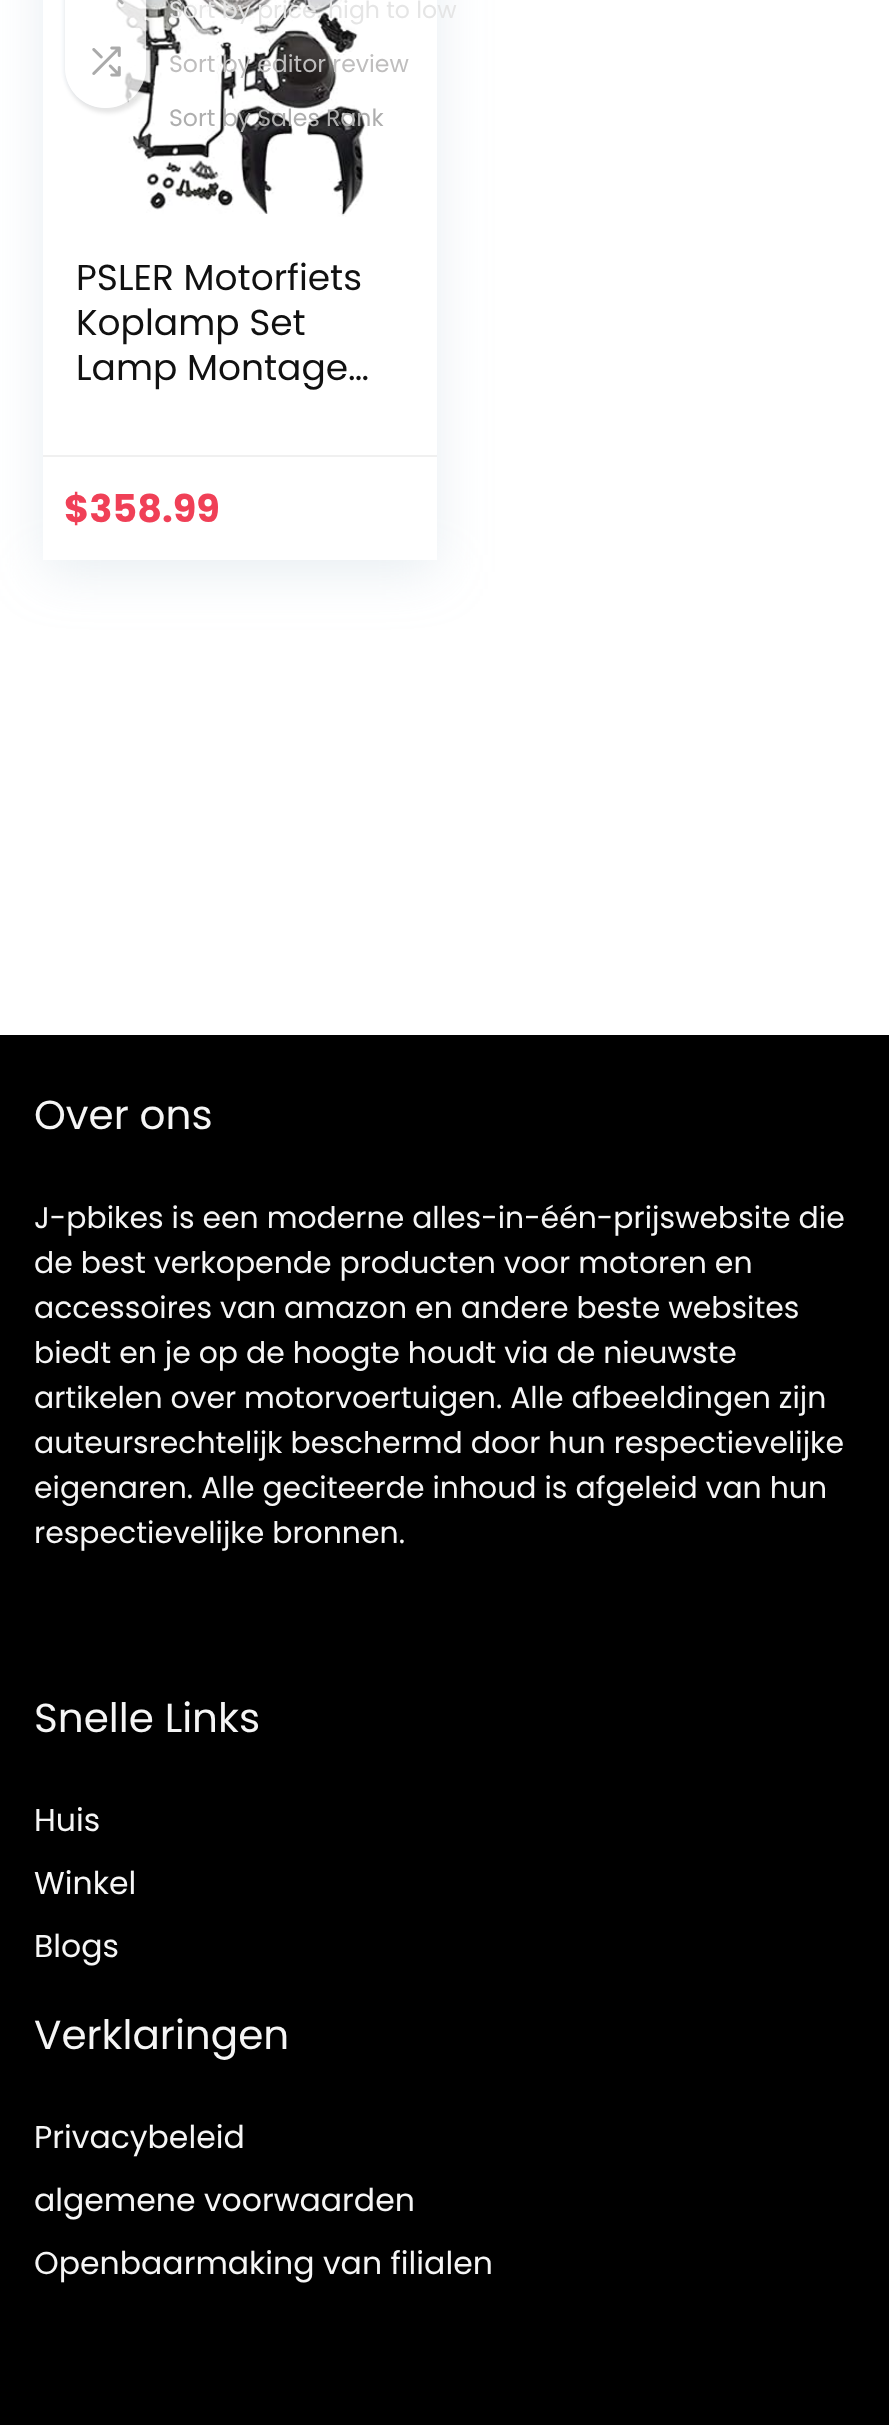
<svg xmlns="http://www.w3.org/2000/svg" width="889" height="2425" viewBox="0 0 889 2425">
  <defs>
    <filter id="blur1" x="-50%" y="-200%" width="200%" height="500%"><feGaussianBlur stdDeviation="26"/></filter>
    <clipPath id="clip1"><path d="M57 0H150V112H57ZM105.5-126C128-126 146-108 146-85.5V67.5C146 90 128 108 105.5 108C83 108 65 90 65 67.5V-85.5C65-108 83-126 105.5-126Z" clip-rule="evenodd"/></clipPath>
    <filter id="blur2" x="-50%" y="-200%" width="200%" height="500%"><feGaussianBlur stdDeviation="1"/></filter>
    <clipPath id="clip2"><path d="M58 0H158V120H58ZM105.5-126C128-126 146-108 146-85.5V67.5C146 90 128 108 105.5 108C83 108 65 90 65 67.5V-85.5C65-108 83-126 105.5-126Z" clip-rule="evenodd"/></clipPath>
    <filter id="blur3" x="-50%" y="-200%" width="200%" height="500%"><feGaussianBlur stdDeviation="2"/></filter>
  </defs>
  <rect width="100%" height="100%" fill="#ffffff"/>
  <rect x="43" y="-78" width="394" height="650" fill="#bccfdb" fill-opacity="0.35" filter="url(#blur1)"/>
  <rect x="43" y="0" width="394" height="560" fill="#ffffff"/>
  <image x="111" y="0" width="257" height="217" href="img3.png"/>
  <text x="169" y="18" font-family="Poppins" font-size="23.6" fill="#e5e5e5">Sort by price: high to low</text>
  <text x="169" y="72" font-family="Poppins" font-size="23.6" fill="#bfbebe">Sort by editor review</text>
  <text x="169" y="126" font-family="Poppins" font-size="23.6" fill="#aeaeae">Sort by Sales Rank</text>
  <g clip-path="url(#clip1)">
    <rect x="61" y="-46" width="85" height="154" rx="42.5" fill="#f7fbff" fill-opacity="0.5" filter="url(#blur2)"/>
  </g>
  <g clip-path="url(#clip2)">
    <rect x="65" y="-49" width="86" height="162" rx="43" fill="#000000" fill-opacity="0.1" filter="url(#blur3)"/>
  </g>
  <rect x="65" y="-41" width="81" height="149" rx="40.5" fill="#ffffff" fill-opacity="0.78"/>
  <image x="117" y="0" width="7" height="5" href="img1.png"/>
  <image x="92" y="46" width="29" height="31" href="img2.png"/>
  <text x="76" y="290" font-family="Poppins" font-size="36" fill="#111111">PSLER Motorfiets</text>
  <text x="76" y="335" font-family="Poppins" font-size="36" fill="#111111">Koplamp Set</text>
  <text x="76" y="380" font-family="Poppins" font-size="36" fill="#111111">Lamp Montage…</text>
  <rect x="43" y="455" width="394" height="2" fill="#f0f0f0"/>
  <text x="64" y="522" font-family="Poppins" font-size="38.25" font-weight="bold" fill="#f04057">$358.99</text>
  <rect x="0" y="1035" width="889" height="1390" fill="#000000"/>
  <text x="34" y="1129" font-family="Poppins" font-size="40.5" fill="#f5f5f5">Over ons</text>
  <text x="34" y="1228" font-family="Poppins" font-size="29.9" fill="#f5f5f5">J-pbikes is een moderne alles-in-één-prijswebsite die</text>
  <text x="34" y="1273" font-family="Poppins" font-size="29.9" fill="#f5f5f5">de best verkopende producten voor motoren en</text>
  <text x="34" y="1318" font-family="Poppins" font-size="29.9" fill="#f5f5f5">accessoires van amazon en andere beste websites</text>
  <text x="34" y="1363" font-family="Poppins" font-size="29.9" fill="#f5f5f5">biedt en je op de hoogte houdt via de nieuwste</text>
  <text x="34" y="1408" font-family="Poppins" font-size="29.9" fill="#f5f5f5">artikelen over motorvoertuigen. Alle afbeeldingen zijn</text>
  <text x="34" y="1453" font-family="Poppins" font-size="29.9" fill="#f5f5f5">auteursrechtelijk beschermd door hun respectievelijke</text>
  <text x="34" y="1498" font-family="Poppins" font-size="29.9" fill="#f5f5f5">eigenaren. Alle geciteerde inhoud is afgeleid van hun</text>
  <text x="34" y="1543" font-family="Poppins" font-size="29.9" fill="#f5f5f5">respectievelijke bronnen.</text>
  <text x="34" y="1732" font-family="Poppins" font-size="40.5" fill="#f5f5f5">Snelle Links</text>
  <text x="34" y="1831" font-family="Poppins" font-size="31.5" fill="#f5f5f5">Huis</text>
  <text x="34" y="1894" font-family="Poppins" font-size="31.5" fill="#f5f5f5">Winkel</text>
  <text x="34" y="1957" font-family="Poppins" font-size="31.5" fill="#f5f5f5">Blogs</text>
  <text x="34" y="2049" font-family="Poppins" font-size="40.5" fill="#f5f5f5">Verklaringen</text>
  <text x="34" y="2148" font-family="Poppins" font-size="31.5" fill="#f5f5f5">Privacybeleid</text>
  <text x="34" y="2211" font-family="Poppins" font-size="31.5" fill="#f5f5f5">algemene voorwaarden</text>
  <text x="34" y="2274" font-family="Poppins" font-size="31.5" fill="#f5f5f5">Openbaarmaking van filialen</text>
</svg>
